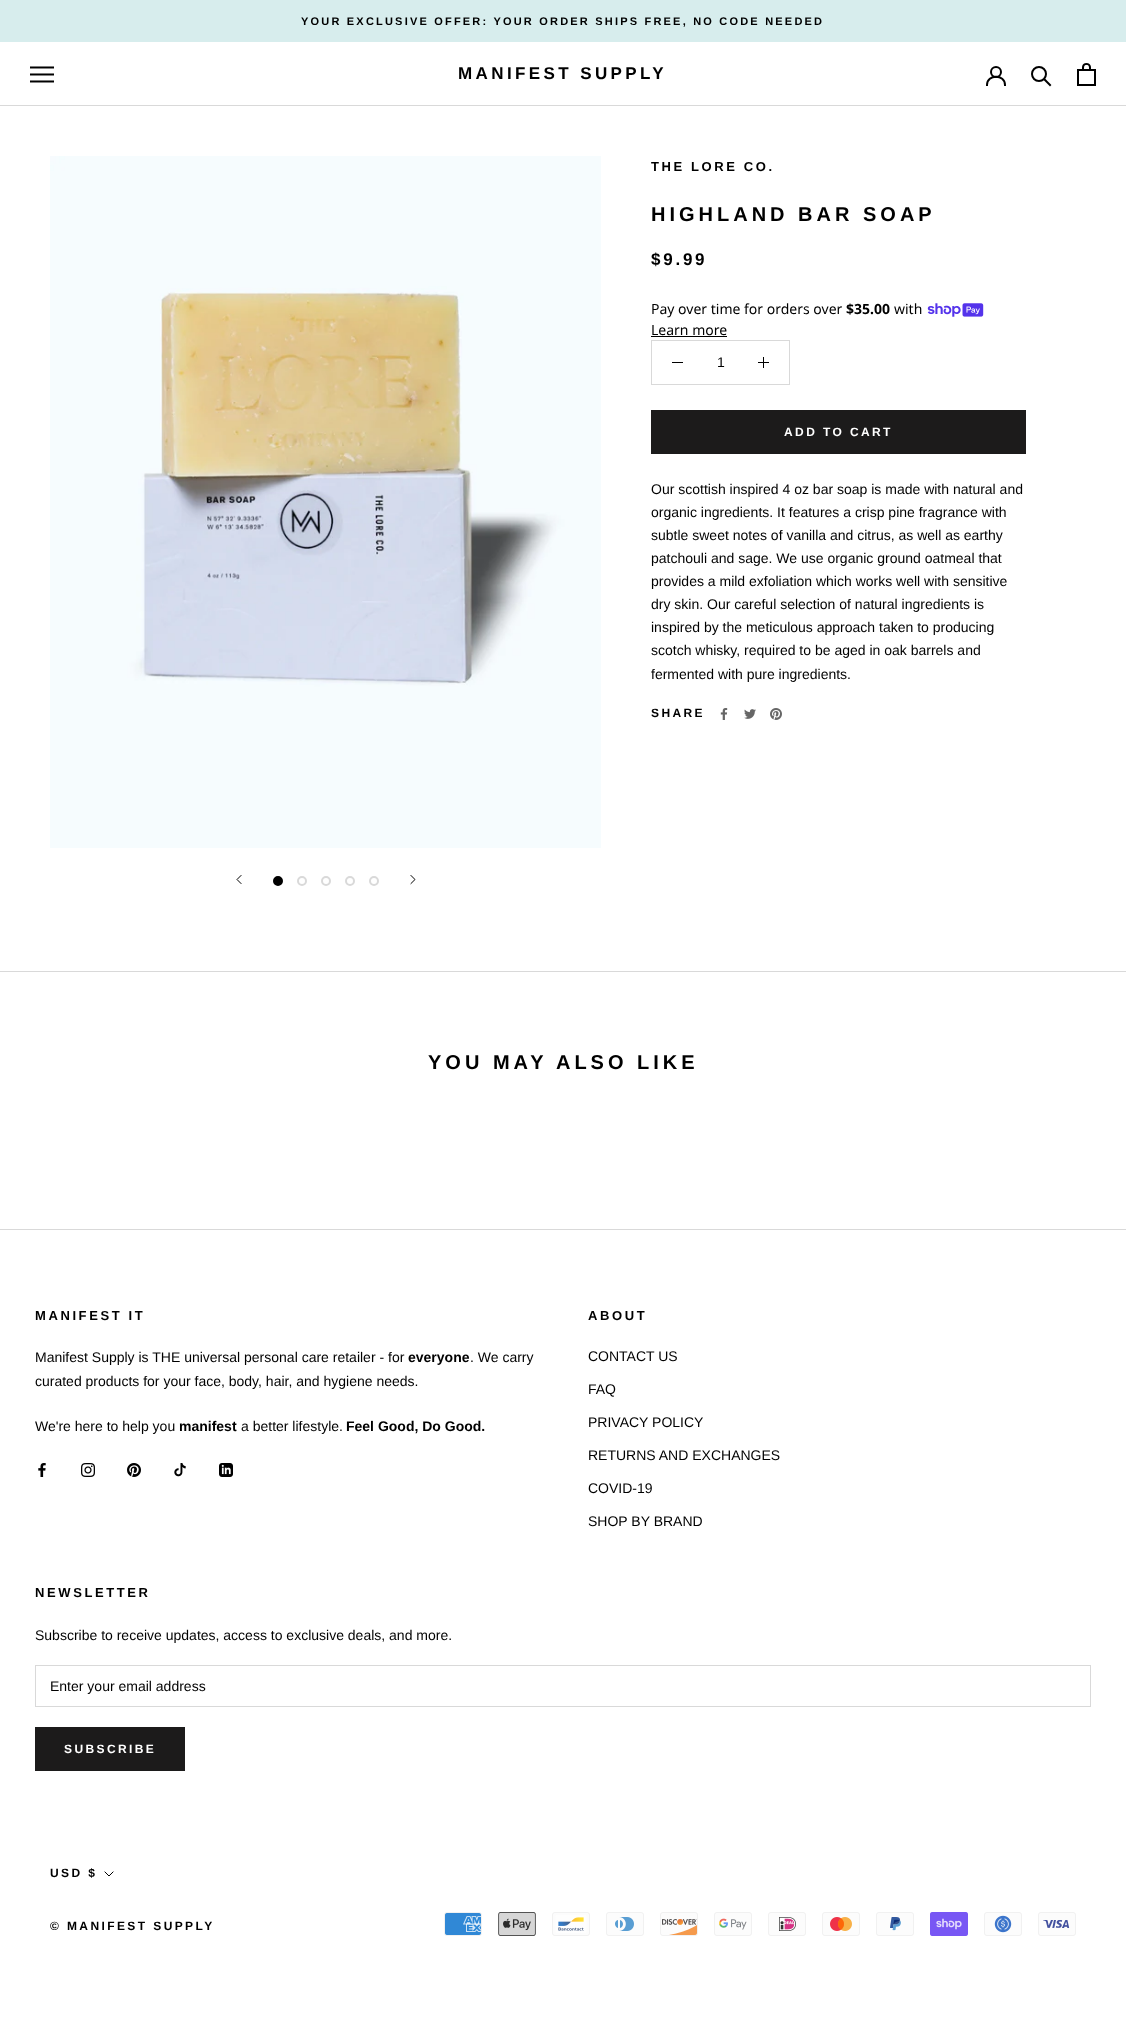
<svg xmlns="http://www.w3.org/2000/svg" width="1126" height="2023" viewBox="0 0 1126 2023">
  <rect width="100%" height="100%" fill="#ffffff"/>
  <rect x="0" y="0" width="1126" height="42" fill="#d7eded"/>
  <text x="301" y="25" font-family="Arimo" font-size="11" font-weight="bold" letter-spacing="2.2" fill="#000000">YOUR EXCLUSIVE OFFER: YOUR ORDER SHIPS FREE, NO CODE NEEDED</text>
  <rect x="0" y="105" width="1126" height="1" fill="#d9d9d9"/>
  <image x="30" y="66" width="24" height="17" href="img1.png"/>
  <text x="458" y="79" font-family="Arimo" font-size="17" font-weight="bold" letter-spacing="3.4" fill="#000000">MANIFEST SUPPLY</text>
  <path d="M987 85C987 74 1005 74 1005 85" fill="none" stroke="#000000" stroke-width="2" stroke-linecap="square"/>
  <circle cx="996" cy="72" r="5" fill="none" stroke="#000000" stroke-width="2"/>
  <path d="M1050 85L1044.5 79.5" fill="none" stroke="#000000" stroke-width="2" stroke-linecap="square"/>
  <circle cx="1039" cy="74" r="7" fill="none" stroke="#000000" stroke-width="2"/>
  <image x="1077" y="63" width="19" height="23" href="img2.png"/>
  <image x="50" y="156" width="551" height="692" href="img3.png"/>
  <path d="M241 883.5L237 879.5L241 875.5" fill="none" stroke="#000000" stroke-linecap="square"/>
  <circle cx="278" cy="881" r="4" fill="#000000" stroke="#000000" stroke-width="2"/>
  <circle cx="302" cy="881" r="4" fill="none" stroke="#d9d9d9" stroke-width="2"/>
  <circle cx="326" cy="881" r="4" fill="none" stroke="#d9d9d9" stroke-width="2"/>
  <circle cx="350" cy="881" r="4" fill="none" stroke="#d9d9d9" stroke-width="2"/>
  <circle cx="374" cy="881" r="4" fill="none" stroke="#d9d9d9" stroke-width="2"/>
  <path d="M411 883.5L415 879.5L411 875.5" fill="none" stroke="#000000" stroke-linecap="square"/>
  <text x="651" y="171" font-family="Arimo" font-size="13" font-weight="bold" letter-spacing="2.6" fill="#000000">THE LORE CO.</text>
  <text x="651" y="221" font-family="Arimo" font-size="20" font-weight="bold" letter-spacing="4" fill="#000000">HIGHLAND BAR SOAP</text>
  <text x="651" y="265" font-family="Arimo" font-size="17" font-weight="bold" letter-spacing="2.75" fill="#000000">$9.99</text>
  <text x="651" y="314" font-family="Noto Sans" font-size="14" fill="#000000">Pay over time for orders over</text>
  <text x="846" y="314" font-family="Noto Sans" font-size="14" font-weight="bold" fill="#000000">$35.00</text>
  <text x="894" y="314" font-family="Noto Sans" font-size="14" fill="#000000">with</text>
  <image x="927" y="303" width="57" height="14" href="img4.png"/>
  <text x="651" y="335" font-family="Noto Sans" font-size="14" fill="#000000">Learn more</text>
  <rect x="651" y="336" width="76" height="1" fill="#000000"/>
  <rect x="651.5" y="340.5" width="138" height="44" fill="none" stroke="#d9d9d9"/>
  <rect x="672" y="362" width="11" height="1" fill="#000000"/>
  <text x="717" y="367" font-family="Liberation Sans" font-size="14" fill="#000000">1</text>
  <rect x="763" y="357" width="1" height="11" fill="#000000"/>
  <rect x="758" y="362" width="11" height="1" fill="#000000"/>
  <rect x="651.5" y="410.5" width="374" height="43" fill="none" stroke="#1c1b1b"/>
  <rect x="652" y="411" width="373" height="42" fill="#1c1b1b"/>
  <text x="784" y="436" font-family="Arimo" font-size="12" font-weight="bold" letter-spacing="2.4" fill="#ffffff">ADD TO CART</text>
  <text x="651" y="494" font-family="Liberation Sans" font-size="14" fill="#000000">Our scottish inspired 4 oz bar soap is made with natural and</text>
  <text x="651" y="517" font-family="Liberation Sans" font-size="14" fill="#000000">organic ingredients. It features a crisp pine fragrance with</text>
  <text x="651" y="540" font-family="Liberation Sans" font-size="14" fill="#000000">subtle sweet notes of vanilla and citrus, as well as earthy</text>
  <text x="651" y="563" font-family="Liberation Sans" font-size="14" fill="#000000">patchouli and sage. We use organic ground oatmeal that</text>
  <text x="651" y="586" font-family="Liberation Sans" font-size="14" fill="#000000">provides a mild exfoliation which works well with sensitive</text>
  <text x="651" y="609" font-family="Liberation Sans" font-size="14" fill="#000000">dry skin. Our careful selection of natural ingredients is</text>
  <text x="651" y="632" font-family="Liberation Sans" font-size="14" fill="#000000">inspired by the meticulous approach taken to producing</text>
  <text x="651" y="655" font-family="Liberation Sans" font-size="14" fill="#000000">scotch whisky, required to be aged in oak barrels and</text>
  <text x="651" y="679" font-family="Liberation Sans" font-size="14" fill="#000000">fermented with pure ingredients.</text>
  <text x="651" y="717" font-family="Arimo" font-size="12" font-weight="bold" letter-spacing="2.4" fill="#000000">SHARE</text>
  <image x="720" y="708" width="8" height="12" href="img5.png"/>
  <image x="744" y="709" width="12" height="10" href="img6.png"/>
  <image x="770" y="708" width="12" height="12" href="img7.png"/>
  <rect x="0" y="971" width="1126" height="1" fill="#d9d9d9"/>
  <text x="428" y="1069" font-family="Arimo" font-size="20" font-weight="bold" letter-spacing="4" fill="#000000">YOU MAY ALSO LIKE</text>
  <rect x="0" y="1229" width="1126" height="1" fill="#d9d9d9"/>
  <text x="35" y="1320" font-family="Arimo" font-size="13" font-weight="bold" letter-spacing="2.6" fill="#000000">MANIFEST IT</text>
  <text x="35" y="1362" font-family="Liberation Sans" font-size="14" fill="#000000">Manifest Supply is THE universal personal care retailer - for</text>
  <text x="408" y="1362" font-family="Liberation Sans" font-size="14" font-weight="bold" fill="#000000">everyone</text>
  <text x="470" y="1362" font-family="Liberation Sans" font-size="14" fill="#000000">. We carry</text>
  <text x="35" y="1386" font-family="Liberation Sans" font-size="14" fill="#000000">curated products for your face, body, hair, and hygiene needs.</text>
  <text x="35" y="1431" font-family="Liberation Sans" font-size="14" fill="#000000">We're here to help you</text>
  <text x="179" y="1431" font-family="Liberation Sans" font-size="14" font-weight="bold" fill="#000000">manifest</text>
  <text x="241" y="1431" font-family="Liberation Sans" font-size="14" fill="#000000">a better lifestyle.</text>
  <text x="346" y="1431" font-family="Liberation Sans" font-size="14" font-weight="bold" fill="#000000">Feel Good, Do Good.</text>
  <image x="38" y="1463" width="8" height="14" href="img8.png"/>
  <image x="81" y="1463" width="14" height="14" href="img9.png"/>
  <image x="127" y="1463" width="14" height="14" href="img10.png"/>
  <image x="174" y="1463" width="12" height="14" href="img11.png"/>
  <image x="219" y="1463" width="14" height="14" href="img12.png"/>
  <text x="588" y="1320" font-family="Arimo" font-size="13" font-weight="bold" letter-spacing="2.6" fill="#000000">ABOUT</text>
  <text x="588" y="1361" font-family="Liberation Sans" font-size="14" fill="#000000">CONTACT US</text>
  <text x="588" y="1394" font-family="Liberation Sans" font-size="14" fill="#000000">FAQ</text>
  <text x="588" y="1427" font-family="Liberation Sans" font-size="14" fill="#000000">PRIVACY POLICY</text>
  <text x="588" y="1460" font-family="Liberation Sans" font-size="14" fill="#000000">RETURNS AND EXCHANGES</text>
  <text x="588" y="1493" font-family="Liberation Sans" font-size="14" fill="#000000">COVID-19</text>
  <text x="588" y="1526" font-family="Liberation Sans" font-size="14" fill="#000000">SHOP BY BRAND</text>
  <text x="35" y="1597" font-family="Arimo" font-size="13" font-weight="bold" letter-spacing="2.6" fill="#000000">NEWSLETTER</text>
  <text x="35" y="1640" font-family="Liberation Sans" font-size="14" fill="#000000">Subscribe to receive updates, access to exclusive deals, and more.</text>
  <rect x="35.5" y="1665.5" width="1055" height="41" fill="none" stroke="#d9d9d9"/>
  <text x="50" y="1691" font-family="Liberation Sans" font-size="14" fill="#000000">Enter your email address</text>
  <rect x="35.5" y="1727.5" width="149" height="43" fill="none" stroke="#1c1b1b"/>
  <rect x="36" y="1728" width="148" height="42" fill="#1c1b1b"/>
  <text x="64" y="1753" font-family="Arimo" font-size="12" font-weight="bold" letter-spacing="2.4" fill="#ffffff">SUBSCRIBE</text>
  <text x="50" y="1877" font-family="Arimo" font-size="12" font-weight="bold" letter-spacing="2.4" fill="#000000">USD $</text>
  <path d="M113 1872L109 1876L105 1872" fill="none" stroke="#000000" stroke-linecap="square"/>
  <text x="50" y="1930" font-family="Arimo" font-size="12" font-weight="bold" letter-spacing="2.4" fill="#000000">© MANIFEST SUPPLY</text>
  <image x="444" y="1912" width="38" height="24" href="img13.png"/>
  <image x="498" y="1912" width="38" height="24" href="img14.png"/>
  <image x="552" y="1912" width="38" height="24" href="img15.png"/>
  <image x="606" y="1912" width="38" height="24" href="img16.png"/>
  <image x="660" y="1912" width="38" height="24" href="img17.png"/>
  <image x="714" y="1912" width="38" height="24" href="img18.png"/>
  <image x="768" y="1912" width="38" height="24" href="img19.png"/>
  <image x="822" y="1912" width="38" height="24" href="img20.png"/>
  <image x="876" y="1912" width="38" height="24" href="img21.png"/>
  <image x="930" y="1912" width="38" height="24" href="img22.png"/>
  <image x="984" y="1912" width="38" height="24" href="img23.png"/>
  <image x="1038" y="1912" width="38" height="24" href="img24.png"/>
</svg>
